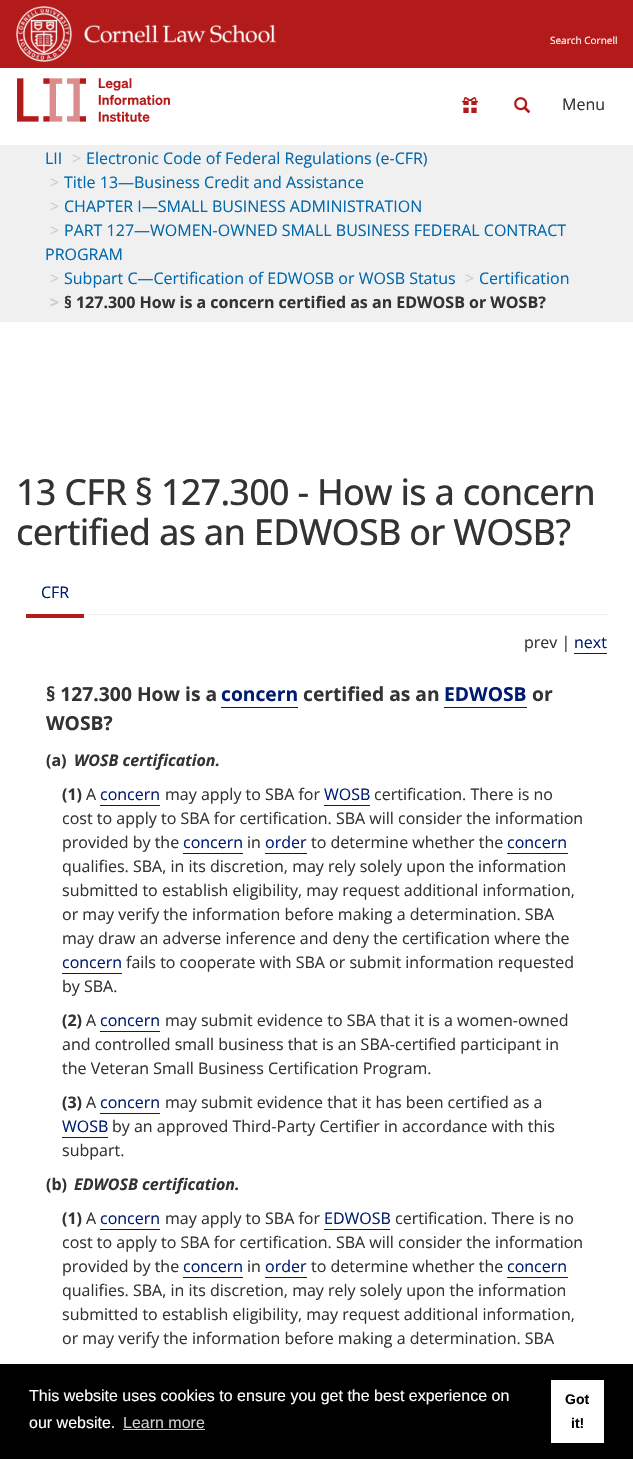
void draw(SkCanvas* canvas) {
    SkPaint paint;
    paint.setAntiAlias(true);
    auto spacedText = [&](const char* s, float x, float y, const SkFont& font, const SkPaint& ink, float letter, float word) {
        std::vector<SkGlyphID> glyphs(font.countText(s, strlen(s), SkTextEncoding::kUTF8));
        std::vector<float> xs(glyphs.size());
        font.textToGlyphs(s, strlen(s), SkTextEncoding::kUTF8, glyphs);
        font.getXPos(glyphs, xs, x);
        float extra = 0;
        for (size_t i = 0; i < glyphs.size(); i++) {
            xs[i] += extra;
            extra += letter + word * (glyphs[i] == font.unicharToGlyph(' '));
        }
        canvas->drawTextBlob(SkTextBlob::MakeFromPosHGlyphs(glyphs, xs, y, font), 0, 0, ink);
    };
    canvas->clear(0xFFFFFFFF);
    paint.setColor(0xFFB31B1B);
    canvas->drawRect(SkRect::MakeXYWH(0, 0, 633, 68), paint);
    canvas->drawImageRect(SkImages::DeferredFromEncodedData(SkData::MakeFromFileName("img1.png")), SkRect::MakeXYWH(16, 6, 56, 56), SkSamplingOptions());
    canvas->drawImageRect(SkImages::DeferredFromEncodedData(SkData::MakeFromFileName("img2.png")), SkRect::MakeXYWH(84, 24, 192, 20), SkSamplingOptions());
    SkFont font1(fontMgr->matchFamilyStyle("Open Sans", SkFontStyle::Normal()), 10);
    font1.setSubpixel(true);
    paint.setColor(0xFFFFFFFF);
    canvas->drawString("Search Cornell", 550, 44, font1, paint);
    canvas->drawImageRect(SkImages::DeferredFromEncodedData(SkData::MakeFromFileName("img3.png")), SkRect::MakeXYWH(17, 78, 153, 44), SkSamplingOptions());
    canvas->drawImageRect(SkImages::DeferredFromEncodedData(SkData::MakeFromFileName("img4.png")), SkRect::MakeXYWH(462, 97, 16, 16), SkSamplingOptions());
    canvas->drawImageRect(SkImages::DeferredFromEncodedData(SkData::MakeFromFileName("img5.png")), SkRect::MakeXYWH(514, 97, 17, 17), SkSamplingOptions());
    SkFont font2(fontMgr->matchFamilyStyle("Open Sans", SkFontStyle::Normal()), 16);
    font2.setSubpixel(true);
    paint.setColor(0xFF333333);
    canvas->drawString("Menu", 562, 110, font2, paint);
    paint.setColor(0xFFF0F0F0);
    canvas->drawRect(SkRect::MakeXYWH(0, 145, 633, 177), paint);
    paint.setColor(0xFF0068AC);
    canvas->drawString("LII", 45, 164, font2, paint);
    paint.setColor(0xFFCCCCCC);
    canvas->drawString(">", 72, 164, font2, paint);
    paint.setColor(0xFF0068AC);
    canvas->drawString("Electronic Code of Federal Regulations (e-CFR)", 86, 164, font2, paint);
    paint.setColor(0xFFCCCCCC);
    canvas->drawString(">", 50, 188, font2, paint);
    paint.setColor(0xFF0068AC);
    canvas->drawString("Title 13—Business Credit and Assistance", 64, 188, font2, paint);
    paint.setColor(0xFFCCCCCC);
    canvas->drawString(">", 50, 212, font2, paint);
    paint.setColor(0xFF0068AC);
    canvas->drawString("CHAPTER I—SMALL BUSINESS ADMINISTRATION", 64, 212, font2, paint);
    paint.setColor(0xFFCCCCCC);
    canvas->drawString(">", 50, 236, font2, paint);
    paint.setColor(0xFF0068AC);
    canvas->drawString("PART 127—WOMEN-OWNED SMALL BUSINESS FEDERAL CONTRACT", 64, 236, font2, paint);
    canvas->drawString("PROGRAM", 45, 260, font2, paint);
    paint.setColor(0xFFCCCCCC);
    canvas->drawString(">", 50, 284, font2, paint);
    paint.setColor(0xFF0068AC);
    canvas->drawString("Subpart C—Certification of EDWOSB or WOSB Status", 64, 284, font2, paint);
    paint.setColor(0xFFCCCCCC);
    canvas->drawString(">", 465, 284, font2, paint);
    paint.setColor(0xFF0068AC);
    canvas->drawString("Certification", 479, 284, font2, paint);
    SkFont font3(fontMgr->matchFamilyStyle("Open Sans", SkFontStyle::Bold()), 16);
    font3.setSubpixel(true);
    paint.setColor(0xFFCCCCCC);
    canvas->drawString(">", 50, 308, font3, paint);
    paint.setColor(0xFF333333);
    canvas->drawString("§ 127.300 How is a concern certified as an EDWOSB or WOSB?", 64, 308, font3, paint);
    SkFont font4(fontMgr->matchFamilyStyle("Open Sans", SkFontStyle(500, SkFontStyle::kNormal_Width, SkFontStyle::kUpright_Slant)), 36);
    font4.setSubpixel(true);
    spacedText("13 CFR § 127.300 - How is a concern", 16, 505, font4, paint, -0.75f, 0);
    spacedText("certified as an EDWOSB or WOSB?", 16, 545, font4, paint, -0.75f, 0);
    paint.setColor(0xFFB31B1B);
    canvas->drawRect(SkRect::MakeXYWH(26, 614, 58, 4), paint);
    paint.setColor(0xFF001C72);
    canvas->drawString("CFR", 41, 598, font2, paint);
    paint.setColor(0xFFEEEEEE);
    canvas->drawRect(SkRect::MakeXYWH(84, 614, 523, 1), paint);
    paint.setColor(0xFF333333);
    canvas->drawString("prev |", 524, 648, font2, paint);
    paint.setColor(0xFF001C72);
    canvas->drawString("next", 574, 648, font2, paint);
    canvas->drawRect(SkRect::MakeXYWH(574, 653, 33, 1), paint);
    SkFont font5(fontMgr->matchFamilyStyle("Open Sans", SkFontStyle::Bold()), 19.25f);
    font5.setSubpixel(true);
    paint.setColor(0xFF333333);
    canvas->drawString("§ 127.300 How is a", 46, 701, font5, paint);
    paint.setColor(0xFF001C72);
    canvas->drawString("concern", 221, 701, font5, paint);
    canvas->drawRect(SkRect::MakeXYWH(221, 707, 77, 1), paint);
    paint.setColor(0xFF333333);
    canvas->drawString("certified as an", 303, 701, font5, paint);
    paint.setColor(0xFF001C72);
    canvas->drawString("EDWOSB", 444, 701, font5, paint);
    canvas->drawRect(SkRect::MakeXYWH(444, 707, 83, 1), paint);
    paint.setColor(0xFF333333);
    canvas->drawString("or", 532, 701, font5, paint);
    canvas->drawString("WOSB?", 46, 730, font5, paint);
    canvas->drawString("(a)", 46, 766, font3, paint);
    SkFont font6(fontMgr->matchFamilyStyle("Open Sans", SkFontStyle::BoldItalic()), 16);
    font6.setSubpixel(true);
    canvas->drawString("WOSB certification.", 74, 766, font6, paint);
    canvas->drawString("(1)", 62, 800, font3, paint);
    canvas->drawString("A", 86, 800, font2, paint);
    paint.setColor(0xFF001C72);
    canvas->drawString("concern", 100, 800, font2, paint);
    canvas->drawRect(SkRect::MakeXYWH(100, 805, 60, 1), paint);
    paint.setColor(0xFF333333);
    canvas->drawString("may apply to SBA for", 165, 800, font2, paint);
    paint.setColor(0xFF001C72);
    canvas->drawString("WOSB", 324, 800, font2, paint);
    canvas->drawRect(SkRect::MakeXYWH(324, 805, 46, 1), paint);
    paint.setColor(0xFF333333);
    canvas->drawString("certification. There is no", 374, 800, font2, paint);
    canvas->drawString("cost to apply to SBA for certification. SBA will consider the information", 62, 824, font2, paint);
    canvas->drawString("provided by the", 62, 848, font2, paint);
    paint.setColor(0xFF001C72);
    canvas->drawString("concern", 183, 848, font2, paint);
    canvas->drawRect(SkRect::MakeXYWH(183, 853, 60, 1), paint);
    paint.setColor(0xFF333333);
    canvas->drawString("in", 247, 848, font2, paint);
    paint.setColor(0xFF001C72);
    canvas->drawString("order", 265, 848, font2, paint);
    canvas->drawRect(SkRect::MakeXYWH(265, 853, 42, 1), paint);
    paint.setColor(0xFF333333);
    canvas->drawString("to determine whether the", 311, 848, font2, paint);
    paint.setColor(0xFF001C72);
    canvas->drawString("concern", 507, 848, font2, paint);
    canvas->drawRect(SkRect::MakeXYWH(507, 853, 61, 1), paint);
    paint.setColor(0xFF333333);
    canvas->drawString("qualifies. SBA, in its discretion, may rely solely upon the information", 62, 872, font2, paint);
    canvas->drawString("submitted to establish eligibility, may request additional information,", 62, 896, font2, paint);
    canvas->drawString("or may verify the information before making a determination. SBA", 62, 920, font2, paint);
    canvas->drawString("may draw an adverse inference and deny the certification where the", 62, 944, font2, paint);
    paint.setColor(0xFF001C72);
    canvas->drawString("concern", 62, 968, font2, paint);
    canvas->drawRect(SkRect::MakeXYWH(62, 973, 60, 1), paint);
    paint.setColor(0xFF333333);
    canvas->drawString("fails to cooperate with SBA or submit information requested", 126, 968, font2, paint);
    canvas->drawString("by SBA.", 62, 992, font2, paint);
    canvas->drawString("(2)", 62, 1026, font3, paint);
    canvas->drawString("A", 86, 1026, font2, paint);
    paint.setColor(0xFF001C72);
    canvas->drawString("concern", 100, 1026, font2, paint);
    canvas->drawRect(SkRect::MakeXYWH(100, 1031, 60, 1), paint);
    paint.setColor(0xFF333333);
    canvas->drawString("may submit evidence to SBA that it is a women-owned", 165, 1026, font2, paint);
    canvas->drawString("and controlled small business that is an SBA-certified participant in", 62, 1050, font2, paint);
    canvas->drawString("the Veteran Small Business Certification Program.", 62, 1074, font2, paint);
    canvas->drawString("(3)", 62, 1108, font3, paint);
    canvas->drawString("A", 86, 1108, font2, paint);
    paint.setColor(0xFF001C72);
    canvas->drawString("concern", 100, 1108, font2, paint);
    canvas->drawRect(SkRect::MakeXYWH(100, 1113, 60, 1), paint);
    paint.setColor(0xFF333333);
    canvas->drawString("may submit evidence that it has been certified as a", 165, 1108, font2, paint);
    paint.setColor(0xFF001C72);
    canvas->drawString("WOSB", 62, 1132, font2, paint);
    canvas->drawRect(SkRect::MakeXYWH(62, 1137, 46, 1), paint);
    paint.setColor(0xFF333333);
    canvas->drawString("by an approved Third-Party Certifier in accordance with this", 112, 1132, font2, paint);
    canvas->drawString("subpart.", 62, 1156, font2, paint);
    canvas->drawString("(b)", 46, 1190, font3, paint);
    canvas->drawString("EDWOSB certification.", 74, 1190, font6, paint);
    canvas->drawString("(1)", 62, 1224, font3, paint);
    canvas->drawString("A", 86, 1224, font2, paint);
    paint.setColor(0xFF001C72);
    canvas->drawString("concern", 100, 1224, font2, paint);
    canvas->drawRect(SkRect::MakeXYWH(100, 1229, 60, 1), paint);
    paint.setColor(0xFF333333);
    canvas->drawString("may apply to SBA for", 165, 1224, font2, paint);
    paint.setColor(0xFF001C72);
    canvas->drawString("EDWOSB", 324, 1224, font2, paint);
    canvas->drawRect(SkRect::MakeXYWH(324, 1229, 66, 1), paint);
    paint.setColor(0xFF333333);
    canvas->drawString("certification. There is no", 395, 1224, font2, paint);
    canvas->drawString("cost to apply to SBA for certification. SBA will consider the information", 62, 1248, font2, paint);
    canvas->drawString("provided by the", 62, 1272, font2, paint);
    paint.setColor(0xFF001C72);
    canvas->drawString("concern", 183, 1272, font2, paint);
    canvas->drawRect(SkRect::MakeXYWH(183, 1277, 60, 1), paint);
    paint.setColor(0xFF333333);
    canvas->drawString("in", 247, 1272, font2, paint);
    paint.setColor(0xFF001C72);
    canvas->drawString("order", 265, 1272, font2, paint);
    canvas->drawRect(SkRect::MakeXYWH(265, 1277, 42, 1), paint);
    paint.setColor(0xFF333333);
    canvas->drawString("to determine whether the", 311, 1272, font2, paint);
    paint.setColor(0xFF001C72);
    canvas->drawString("concern", 507, 1272, font2, paint);
    canvas->drawRect(SkRect::MakeXYWH(507, 1277, 61, 1), paint);
    paint.setColor(0xFF333333);
    canvas->drawString("qualifies. SBA, in its discretion, may rely solely upon the information", 62, 1296, font2, paint);
    canvas->drawString("submitted to establish eligibility, may request additional information,", 62, 1320, font2, paint);
    canvas->drawString("or may verify the information before making a determination. SBA", 62, 1344, font2, paint);
    paint.setColor(0xFF000000);
    canvas->drawRect(SkRect::MakeXYWH(0, 1364, 633, 95), paint);
    SkFont font7(fontMgr->matchFamilyStyle("Liberation Sans", SkFontStyle::Normal()), 16);
    font7.setSubpixel(true);
    paint.setColor(0xFFFFFFFF);
    canvas->drawString("This website uses cookies to ensure you get the best experience on", 29, 1401, font7, paint);
    canvas->drawString("our website.", 29, 1428, font7, paint);
    paint.setColor(0xFFCCCCCC);
    canvas->drawString("Learn more", 123, 1428, font7, paint);
    canvas->drawRect(SkRect::MakeXYWH(123, 1429, 82, 1), paint);
    paint.setColor(0xFFFFFFFF);
    canvas->drawRect(SkRect::MakeXYWH(551, 1380, 53, 63), paint);
    SkFont font8(fontMgr->matchFamilyStyle("Liberation Sans", SkFontStyle::Bold()), 14);
    font8.setSubpixel(true);
    paint.setColor(0xFF000000);
    canvas->drawString("Got", 565, 1404, font8, paint);
    canvas->drawString("it!", 571, 1428, font8, paint);
}
